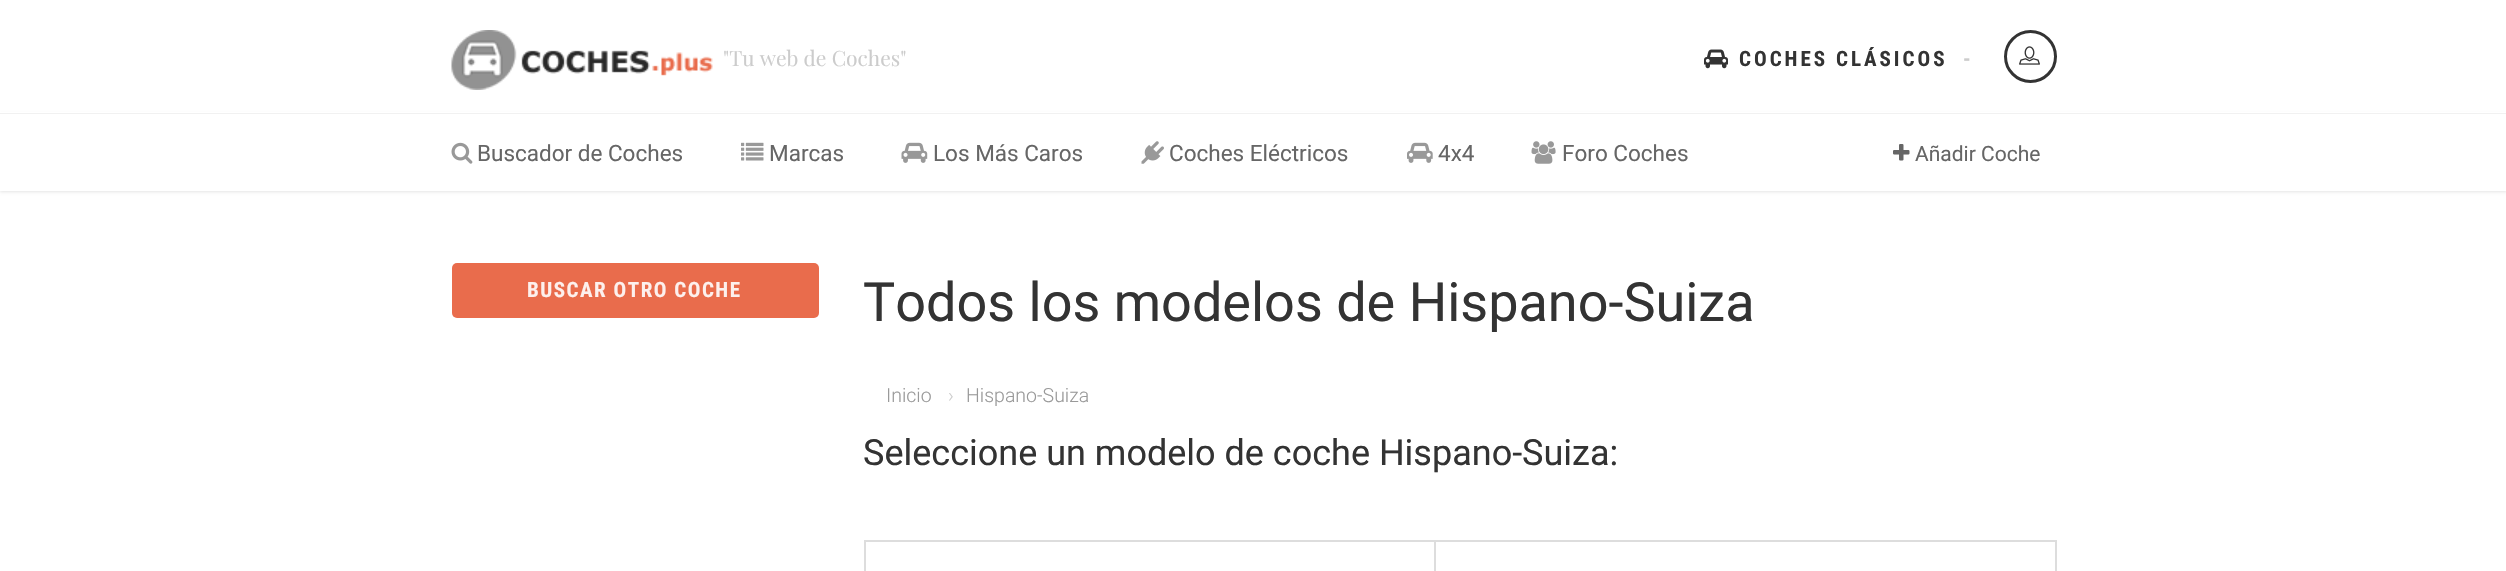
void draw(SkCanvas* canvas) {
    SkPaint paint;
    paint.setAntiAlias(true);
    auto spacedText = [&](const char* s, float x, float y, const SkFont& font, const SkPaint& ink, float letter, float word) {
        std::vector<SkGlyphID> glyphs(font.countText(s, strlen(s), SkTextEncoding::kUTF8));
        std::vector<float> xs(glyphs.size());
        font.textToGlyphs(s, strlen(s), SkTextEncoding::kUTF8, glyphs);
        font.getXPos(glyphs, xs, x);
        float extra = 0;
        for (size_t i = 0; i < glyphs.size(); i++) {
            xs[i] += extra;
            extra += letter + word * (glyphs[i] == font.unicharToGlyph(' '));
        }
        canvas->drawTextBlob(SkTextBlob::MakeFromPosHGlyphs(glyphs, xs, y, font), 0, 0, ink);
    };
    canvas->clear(0xFFFFFFFF);
    canvas->save();
    canvas->clipPath(SkPathBuilder(SkPathFillType::kEvenOdd).moveTo(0, 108).lineTo(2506, 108).lineTo(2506, 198).lineTo(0, 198).close().moveTo(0, 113).lineTo(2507, 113).lineTo(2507, 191).lineTo(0, 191).close().detach(), true);
    paint.setColor(0x1A000000);
    paint.setMaskFilter(SkMaskFilter::MakeBlur(kNormal_SkBlurStyle, 1.5f));
    canvas->drawRect(SkRect::MakeXYWH(0, 114, 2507, 78), paint);
    paint.setMaskFilter(nullptr);
    canvas->restore();
    paint.setColor(0xFFF1F1F1);
    canvas->drawPath(SkPathBuilder().moveTo(0, 112).lineTo(0, 114).lineTo(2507, 114).lineTo(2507, 2).lineTo(2506, 2).lineTo(2506, 112).close().detach(), paint);
    paint.setColor(0xFFFFFFFF);
    canvas->drawRect(SkRect::MakeXYWH(0, 112, 2506, 1), paint);
    canvas->drawImageRect(SkImages::DeferredFromEncodedData(SkData::MakeFromFileName("img1.png")), SkRect::MakeXYWH(451, 30, 262, 60), SkSamplingOptions());
    SkFont font1(fontMgr->matchFamilyStyle("Playfair Display", SkFontStyle::Normal()), 21);
    font1.setSubpixel(true);
    paint.setColor(0xFFCCCCCC);
    canvas->drawString("\"Tu web de Coches\"", 723, 66, font1, paint);
    canvas->drawImageRect(SkImages::DeferredFromEncodedData(SkData::MakeFromFileName("img2.png")), SkRect::MakeXYWH(1704, 49, 24, 20), SkSamplingOptions());
    SkFont font2(fontMgr->matchFamilyStyle("Roboto Condensed", SkFontStyle::Bold()), 21);
    font2.setSubpixel(true);
    paint.setColor(0xFF333333);
    spacedText("COCHES CLÁSICOS", 1739, 66, font2, paint, 3, 0);
    paint.setColor(0xFFCCCCCC);
    spacedText("-", 1963, 66, font2, paint, 3, 0);
    paint.setStyle(SkPaint::kStroke_Style);
    paint.setStrokeWidth(3);
    paint.setColor(0xFF333333);
    canvas->drawCircle(2030.5f, 56.5f, 25, paint);
    canvas->drawImageRect(SkImages::DeferredFromEncodedData(SkData::MakeFromFileName("img3.png")), SkRect::MakeXYWH(2019, 46, 21, 19), SkSamplingOptions());
    paint.setStyle(SkPaint::kFill_Style);
    paint.setColor(0xE6FFFFFF);
    canvas->drawRect(SkRect::MakeXYWH(0, 190, 2506, 1), paint);
    canvas->drawImageRect(SkImages::DeferredFromEncodedData(SkData::MakeFromFileName("img4.png")), SkRect::MakeXYWH(451, 142, 22, 22), SkSamplingOptions());
    SkFont font3(fontMgr->matchFamilyStyle("Roboto", SkFontStyle::Normal()), 22.5f);
    font3.setSubpixel(true);
    paint.setColor(0xFF666666);
    canvas->drawString("Buscador de Coches", 477, 161, font3, paint);
    canvas->drawImageRect(SkImages::DeferredFromEncodedData(SkData::MakeFromFileName("img5.png")), SkRect::MakeXYWH(741, 142, 23, 19), SkSamplingOptions());
    canvas->drawString("Marcas", 769, 161, font3, paint);
    canvas->drawImageRect(SkImages::DeferredFromEncodedData(SkData::MakeFromFileName("img6.png")), SkRect::MakeXYWH(901, 142, 27, 21), SkSamplingOptions());
    canvas->drawString("Los Más Caros", 933, 161, font3, paint);
    canvas->drawImageRect(SkImages::DeferredFromEncodedData(SkData::MakeFromFileName("img7.png")), SkRect::MakeXYWH(1141, 141, 23, 23), SkSamplingOptions());
    canvas->drawString("Coches Eléctricos", 1169, 161, font3, paint);
    canvas->drawImageRect(SkImages::DeferredFromEncodedData(SkData::MakeFromFileName("img8.png")), SkRect::MakeXYWH(1407, 142, 26, 21), SkSamplingOptions());
    canvas->drawString("4x4", 1438, 161, font3, paint);
    canvas->drawImageRect(SkImages::DeferredFromEncodedData(SkData::MakeFromFileName("img9.png")), SkRect::MakeXYWH(1531, 141, 25, 23), SkSamplingOptions());
    canvas->drawString("Foro Coches", 1562, 161, font3, paint);
    canvas->drawImageRect(SkImages::DeferredFromEncodedData(SkData::MakeFromFileName("img10.png")), SkRect::MakeXYWH(1893, 144, 17, 17), SkSamplingOptions());
    SkFont font4(fontMgr->matchFamilyStyle("Roboto", SkFontStyle::Normal()), 21);
    font4.setSubpixel(true);
    canvas->drawString("Añadir Coche", 1915, 161, font4, paint);
    paint.setColor(0xFFE96C4C);
    canvas->drawRoundRect(SkRect::MakeXYWH(452, 263, 367, 55), 5, 5, paint);
    paint.setColor(0xFFFDF0ED);
    spacedText("BUSCAR OTRO COCHE", 527, 297, font2, paint, 1.5f, 0);
    SkFont font5(fontMgr->matchFamilyStyle("Roboto", SkFontStyle::Normal()), 54);
    font5.setSubpixel(true);
    paint.setColor(0xFF333333);
    canvas->drawString("Todos los modelos de Hispano-Suiza", 863, 321, font5, paint);
    SkFont font6(fontMgr->matchFamilyStyle("Roboto", SkFontStyle(300, SkFontStyle::kNormal_Width, SkFontStyle::kUpright_Slant)), 19.5f);
    font6.setSubpixel(true);
    paint.setColor(0xFF999999);
    canvas->drawString("Inicio", 886, 402, font6, paint);
    paint.setColor(0xFFCCCCCC);
    canvas->drawString("›", 948, 402, font6, paint);
    paint.setColor(0xFF999999);
    canvas->drawString("Hispano-Suiza", 966, 402, font6, paint);
    SkFont font7(fontMgr->matchFamilyStyle("Roboto", SkFontStyle::Normal()), 36);
    font7.setSubpixel(true);
    paint.setColor(0xFF333333);
    canvas->drawString("Seleccione un modelo de coche Hispano-Suiza:", 863, 465, font7, paint);
    paint.setColor(0xFFDDDDDD);
    canvas->drawRect(SkRect::MakeXYWH(864, 540, 1193, 2), paint);
    canvas->drawRect(SkRect::MakeXYWH(2055, 540, 2, 31), paint);
    canvas->drawRect(SkRect::MakeXYWH(864, 540, 2, 31), paint);
    canvas->drawRect(SkRect::MakeXYWH(1434, 540, 2, 31), paint);
}
